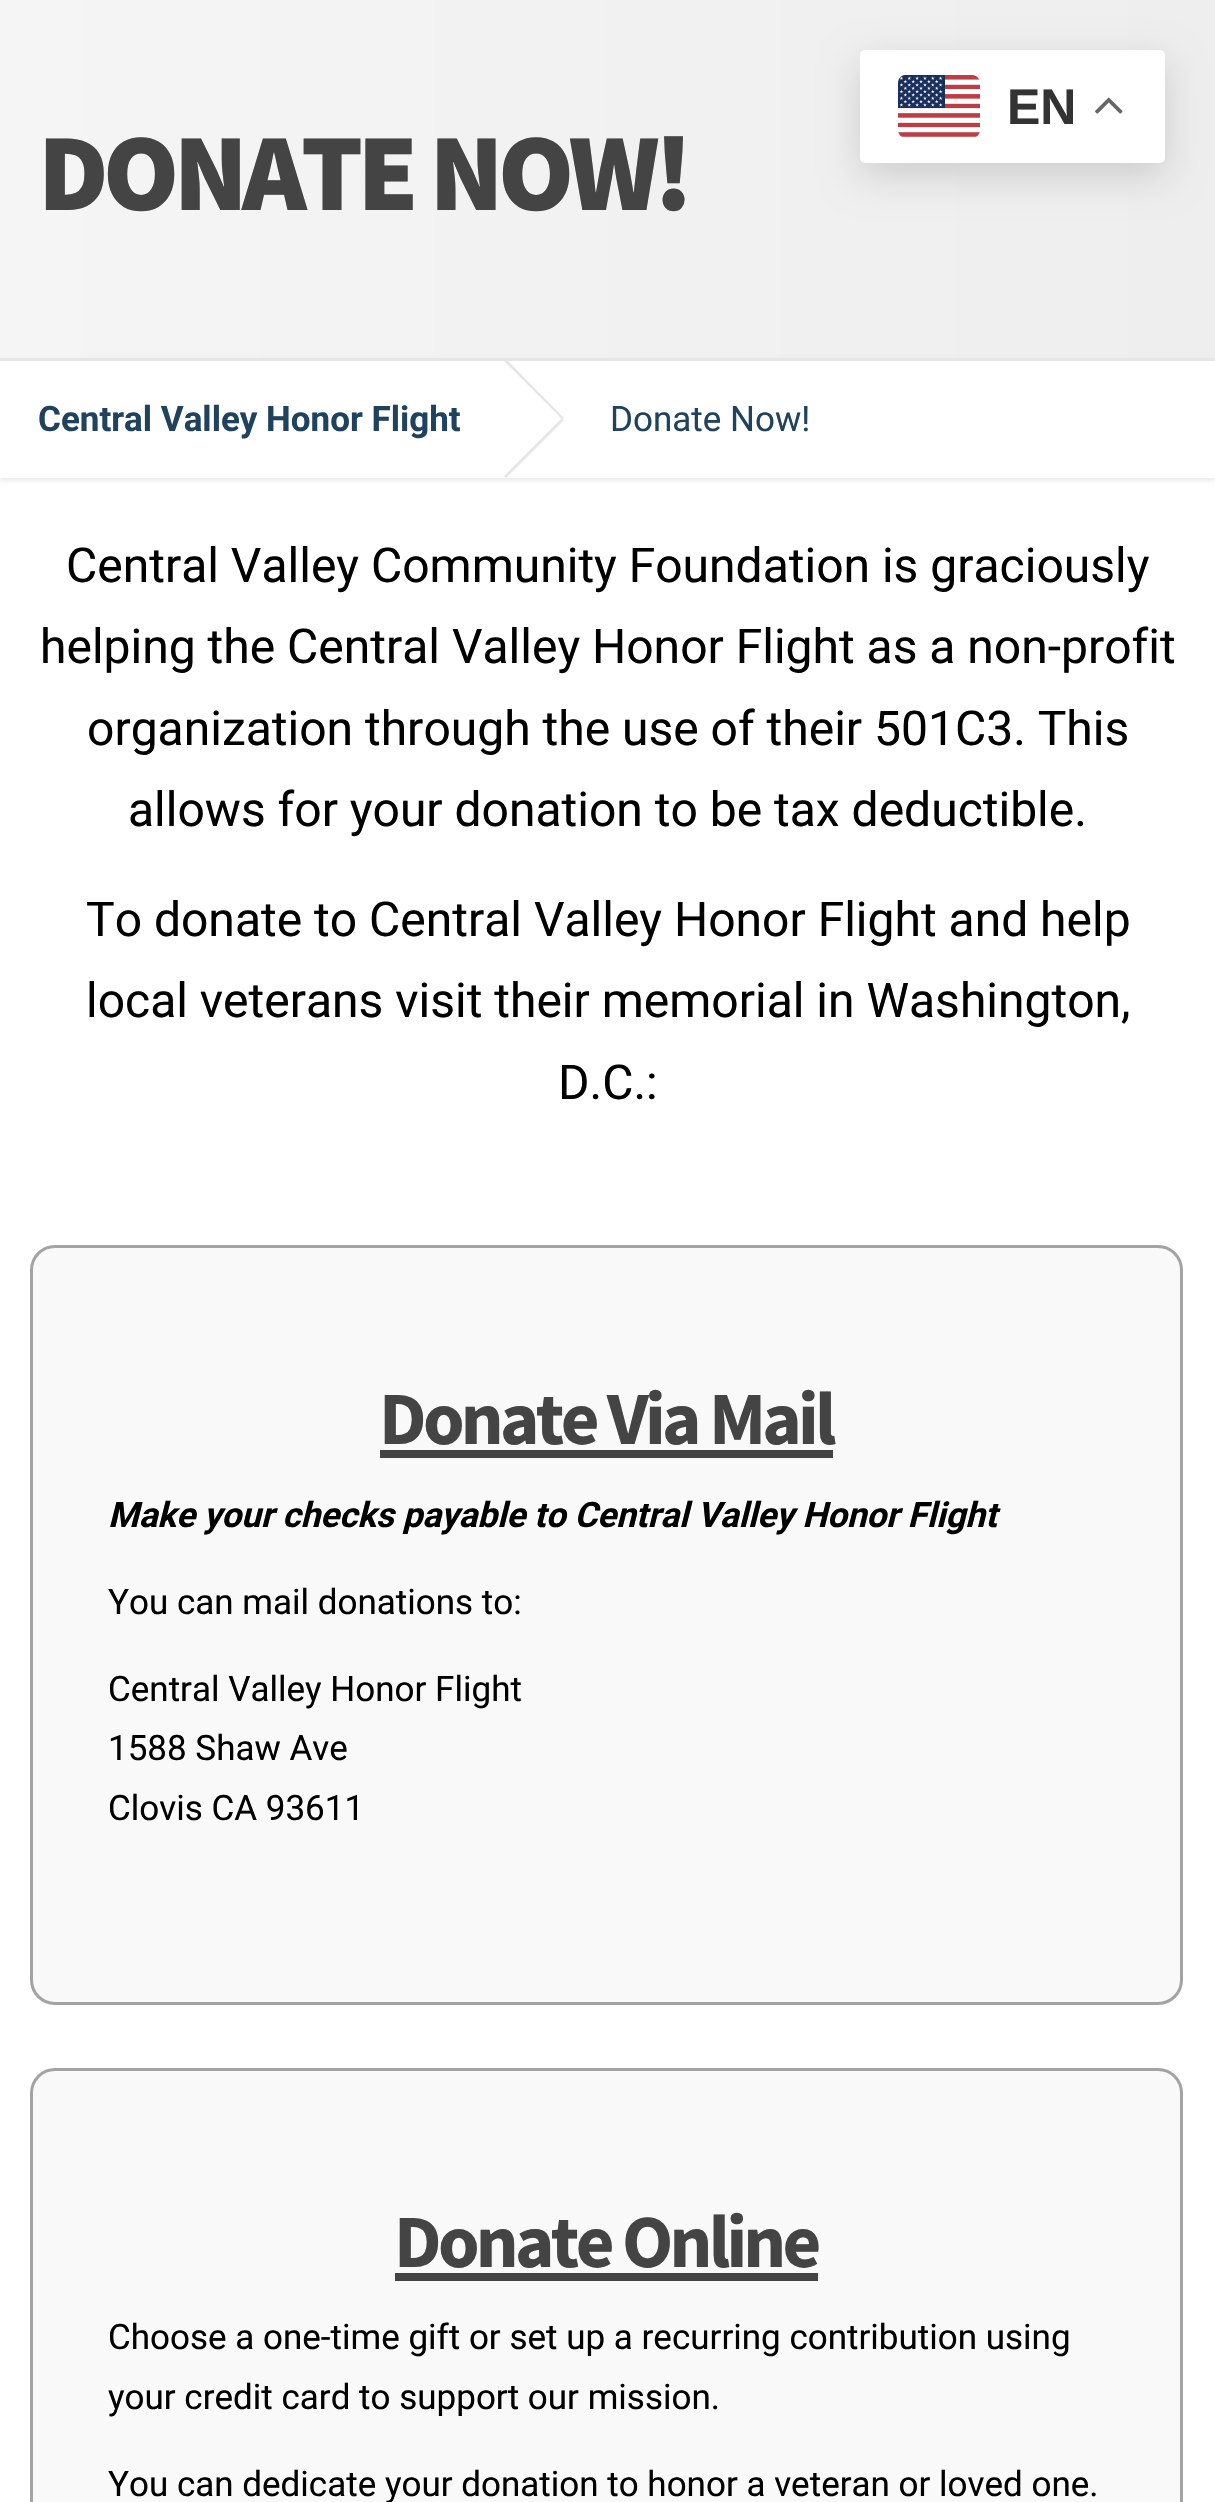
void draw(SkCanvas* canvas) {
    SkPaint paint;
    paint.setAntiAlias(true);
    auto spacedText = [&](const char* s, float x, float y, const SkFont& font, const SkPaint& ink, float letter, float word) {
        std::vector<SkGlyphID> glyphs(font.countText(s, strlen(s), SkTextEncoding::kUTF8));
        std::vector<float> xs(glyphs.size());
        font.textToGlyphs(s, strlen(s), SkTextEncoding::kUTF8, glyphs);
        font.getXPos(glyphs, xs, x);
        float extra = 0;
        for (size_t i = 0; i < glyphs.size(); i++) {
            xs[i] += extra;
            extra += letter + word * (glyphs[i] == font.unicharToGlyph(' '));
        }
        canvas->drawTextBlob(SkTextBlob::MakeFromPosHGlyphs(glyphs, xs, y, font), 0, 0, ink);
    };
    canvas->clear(0xFFFFFFFF);
    {
        const SkColor colors[] = {0xFFF5F5F5, 0xFFEEEEEE};
        const float stops[] = {0, 1};
        const SkPoint ends[] = {{0, 173}, {1215, 172}};
        paint.setShader(SkGradientShader::MakeLinear(ends, colors, stops, 2, SkTileMode::kClamp));
        paint.setAlpha(255);
    }
    canvas->drawRect(SkRect::MakeXYWH(0, 0, 1215, 358), paint);
    paint.setShader(nullptr);
    paint.setColor(0x26000000);
    paint.setMaskFilter(SkMaskFilter::MakeBlur(kNormal_SkBlurStyle, 19));
    canvas->drawRoundRect(SkRect::MakeXYWH(860, 63, 305, 112), 5, 5, paint);
    paint.setMaskFilter(nullptr);
    paint.setColor(0xFFFFFFFF);
    canvas->drawRoundRect(SkRect::MakeXYWH(860, 50, 305, 113), 5, 5, paint);
    canvas->drawImageRect(SkImages::DeferredFromEncodedData(SkData::MakeFromFileName("img1.png")), SkRect::MakeXYWH(898, 75, 82, 62), SkSamplingOptions());
    SkFont font1(fontMgr->matchFamilyStyle("Liberation Sans", SkFontStyle::Bold()), 50);
    font1.setSubpixel(true);
    paint.setColor(0xFF333333);
    canvas->drawString("EN", 1007, 124, font1, paint);
    canvas->drawImageRect(SkImages::DeferredFromEncodedData(SkData::MakeFromFileName("img2.png")), SkRect::MakeXYWH(1095, 97, 28, 17), SkSamplingOptions());
    SkFont font2(fontMgr->matchFamilyStyle("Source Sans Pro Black", SkFontStyle(900, SkFontStyle::kNormal_Width, SkFontStyle::kUpright_Slant)), 110);
    font2.setSubpixel(true);
    paint.setColor(0xFF444444);
    spacedText("DONATE NOW!", 38, 210, font2, paint, -5.5f, 0);
    paint.setColor(0xFFE6E6E6);
    paint.setMaskFilter(SkMaskFilter::MakeBlur(kNormal_SkBlurStyle, 2.5f));
    canvas->drawRect(SkRect::MakeXYWH(0, 360, 1215, 120), paint);
    paint.setMaskFilter(nullptr);
    paint.setColor(0xFFFFFFFF);
    canvas->drawRect(SkRect::MakeXYWH(0, 361, 1215, 117), paint);
    paint.setColor(0xFFE6E6E6);
    canvas->drawRect(SkRect::MakeXYWH(0, 358, 1215, 3), paint);
    SkFont font3(fontMgr->matchFamilyStyle("Roboto", SkFontStyle::Bold()), 35);
    font3.setSubpixel(true);
    paint.setColor(0xFF1F425F);
    canvas->drawString("Central Valley Honor Flight", 38, 431, font3, paint);
    paint.setColor(0xFFE6E6E6);
    canvas->drawPath(SkPathBuilder().moveTo(504, 361).lineTo(506, 359).lineTo(564, 418).lineTo(562, 419).close().detach(), paint);
    canvas->drawPath(SkPathBuilder().moveTo(562, 418).lineTo(564, 420).lineTo(506, 478).lineTo(504, 476).close().detach(), paint);
    SkFont font4(fontMgr->matchFamilyStyle("Roboto", SkFontStyle::Normal()), 35);
    font4.setSubpixel(true);
    paint.setColor(0xFF1F425F);
    canvas->drawString("Donate Now!", 610, 431, font4, paint);
    SkFont font5(fontMgr->matchFamilyStyle("Roboto", SkFontStyle::Normal()), 48);
    font5.setSubpixel(true);
    paint.setColor(0xFF000000);
    canvas->drawString("Central Valley Community Foundation is graciously", 66, 582, font5, paint);
    canvas->drawString("helping the Central Valley Honor Flight as a non-profit", 40, 663, font5, paint);
    canvas->drawString("organization through the use of their 501C3. This", 87, 745, font5, paint);
    canvas->drawString("allows for your donation to be tax deductible.", 128, 826, font5, paint);
    canvas->drawString("To donate to Central Valley Honor Flight and help", 86, 936, font5, paint);
    canvas->drawString("local veterans visit their memorial in Washington,", 86, 1017, font5, paint);
    canvas->drawString("D.C.:", 558, 1099, font5, paint);
    paint.setColor(0xFFF9F9F9);
    canvas->drawRoundRect(SkRect::MakeXYWH(31.5f, 1246.5f, 1150, 757), 23.5f, 23.5f, paint);
    paint.setStyle(SkPaint::kStroke_Style);
    paint.setStrokeWidth(3);
    paint.setColor(0xFFA3A3A3);
    canvas->drawRoundRect(SkRect::MakeXYWH(31.5f, 1246.5f, 1150, 757), 23.5f, 23.5f, paint);
    SkFont font6(fontMgr->matchFamilyStyle("Source Sans Pro", SkFontStyle::Bold()), 75);
    font6.setSubpixel(true);
    paint.setStyle(SkPaint::kFill_Style);
    paint.setColor(0xFF444444);
    spacedText("Donate Via Mail", 379, 1444, font6, paint, -3.75f, 0);
    canvas->drawRect(SkRect::MakeXYWH(380, 1450, 453, 8), paint);
    SkFont font7(fontMgr->matchFamilyStyle("Roboto", SkFontStyle::BoldItalic()), 35);
    font7.setSubpixel(true);
    paint.setColor(0xFF000000);
    canvas->drawString("Make your checks payable to Central Valley Honor Flight", 108, 1527, font7, paint);
    canvas->drawString("You can mail donations to:", 108, 1614, font4, paint);
    canvas->drawString("Central Valley Honor Flight", 108, 1701, font4, paint);
    canvas->drawString("1588 Shaw Ave", 108, 1760, font4, paint);
    canvas->drawString("Clovis CA 93611", 108, 1820, font4, paint);
    paint.setColor(0xFFF9F9F9);
    canvas->drawRoundRect(SkRect::MakeXYWH(31.5f, 2069.5f, 1150, 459), 23.5f, 23.5f, paint);
    paint.setStyle(SkPaint::kStroke_Style);
    paint.setColor(0xFFA3A3A3);
    canvas->drawRoundRect(SkRect::MakeXYWH(31.5f, 2069.5f, 1150, 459), 23.5f, 23.5f, paint);
    paint.setStyle(SkPaint::kFill_Style);
    paint.setColor(0xFF444444);
    spacedText("Donate Online", 394, 2267, font6, paint, -3.75f, 0);
    canvas->drawRect(SkRect::MakeXYWH(395, 2273, 423, 8), paint);
    paint.setColor(0xFF000000);
    canvas->drawString("Choose a one-time gift or set up a recurring contribution using", 108, 2349, font4, paint);
    canvas->drawString("your credit card to support our mission.", 108, 2409, font4, paint);
    canvas->drawString("You can dedicate your donation to honor a veteran or loved one.", 108, 2496, font4, paint);
}
